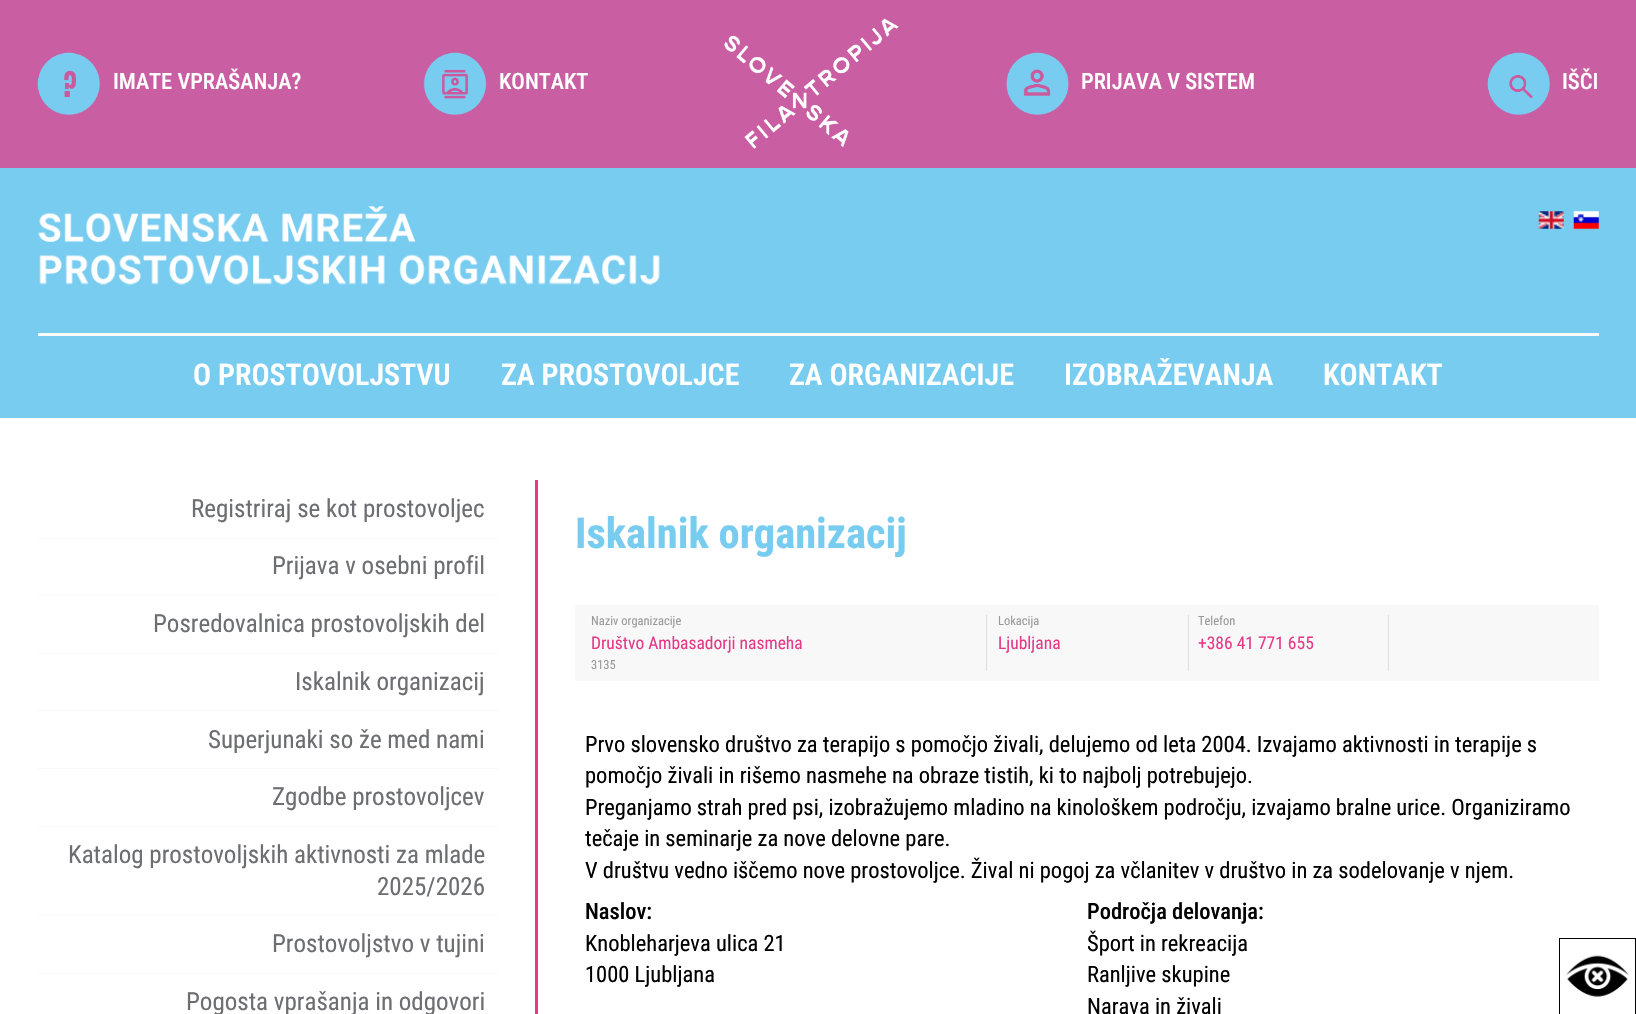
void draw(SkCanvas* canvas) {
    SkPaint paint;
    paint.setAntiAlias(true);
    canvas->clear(0xFFFFFFFF);
    paint.setColor(0xFFC95FA2);
    canvas->drawRect(SkRect::MakeXYWH(0, 0, 1636, 168), paint);
    canvas->drawImageRect(SkImages::DeferredFromEncodedData(SkData::MakeFromFileName("img1.png")), SkRect::MakeXYWH(37, 52, 63, 63), SkSamplingOptions());
    SkFont font1(fontMgr->matchFamilyStyle("Roboto Condensed", SkFontStyle(500, SkFontStyle::kNormal_Width, SkFontStyle::kUpright_Slant)), 22.5f);
    font1.setSubpixel(true);
    paint.setColor(0xFFFFFFFF);
    canvas->drawString("IMATE VPRAŠANJA?", 113, 89, font1, paint);
    canvas->drawImageRect(SkImages::DeferredFromEncodedData(SkData::MakeFromFileName("img2.png")), SkRect::MakeXYWH(423, 52, 64, 63), SkSamplingOptions());
    canvas->drawString("KONTAKT", 499, 89, font1, paint);
    canvas->drawImageRect(SkImages::DeferredFromEncodedData(SkData::MakeFromFileName("img3.png")), SkRect::MakeXYWH(724, 18, 175, 131), SkSamplingOptions());
    canvas->drawImageRect(SkImages::DeferredFromEncodedData(SkData::MakeFromFileName("img4.png")), SkRect::MakeXYWH(1006, 52, 63, 63), SkSamplingOptions());
    canvas->drawString("PRIJAVA V SISTEM", 1081, 89, font1, paint);
    canvas->drawImageRect(SkImages::DeferredFromEncodedData(SkData::MakeFromFileName("img5.png")), SkRect::MakeXYWH(1487, 52, 63, 63), SkSamplingOptions());
    canvas->drawString("IŠČI", 1562, 89, font1, paint);
    paint.setColor(0xFF78CCF0);
    canvas->drawRect(SkRect::MakeXYWH(0, 168, 1636, 250), paint);
    paint.setColor(0xFFFFFFFF);
    canvas->drawRect(SkRect::MakeXYWH(38, 333, 1561, 3), paint);
    canvas->drawImageRect(SkImages::DeferredFromEncodedData(SkData::MakeFromFileName("img6.png")), SkRect::MakeXYWH(38, 206, 622, 79), SkSamplingOptions());
    canvas->drawImageRect(SkImages::DeferredFromEncodedData(SkData::MakeFromFileName("img7.png")), SkRect::MakeXYWH(1538, 211, 26, 18), SkSamplingOptions());
    canvas->drawImageRect(SkImages::DeferredFromEncodedData(SkData::MakeFromFileName("img8.png")), SkRect::MakeXYWH(1573, 211, 26, 18), SkSamplingOptions());
    SkFont font2(fontMgr->matchFamilyStyle("Roboto Condensed", SkFontStyle(600, SkFontStyle::kNormal_Width, SkFontStyle::kUpright_Slant)), 30);
    font2.setSubpixel(true);
    canvas->drawString("O PROSTOVOLJSTVU", 193, 385, font2, paint);
    canvas->drawString("ZA PROSTOVOLJCE", 501, 385, font2, paint);
    canvas->drawString("ZA ORGANIZACIJE", 789, 385, font2, paint);
    canvas->drawString("IZOBRAŽEVANJA", 1064, 385, font2, paint);
    canvas->drawString("KONTAKT", 1323, 385, font2, paint);
    paint.setColor(0xFFE43A88);
    canvas->drawRect(SkRect::MakeXYWH(535, 480, 3, 534), paint);
    paint.setColor(0xFFF8F8F8);
    canvas->drawRect(SkRect::MakeXYWH(38, 538, 460, 1), paint);
    SkFont font3(fontMgr->matchFamilyStyle("Roboto Condensed", SkFontStyle::Normal()), 25);
    font3.setSubpixel(true);
    paint.setColor(0xFF6D6E71);
    canvas->drawString("Registriraj se kot prostovoljec", 191, 517, font3, paint);
    paint.setColor(0xFFF8F8F8);
    canvas->drawRect(SkRect::MakeXYWH(38, 595, 460, 1), paint);
    paint.setColor(0xFF6D6E71);
    canvas->drawString("Prijava v osebni profil", 272, 574, font3, paint);
    paint.setColor(0xFFF8F8F8);
    canvas->drawRect(SkRect::MakeXYWH(38, 653, 460, 1), paint);
    paint.setColor(0xFF6D6E71);
    canvas->drawString("Posredovalnica prostovoljskih del", 153, 632, font3, paint);
    paint.setColor(0xFFF8F8F8);
    canvas->drawRect(SkRect::MakeXYWH(38, 710, 460, 1), paint);
    paint.setColor(0xFF6D6E71);
    canvas->drawString("Iskalnik organizacij", 295, 690, font3, paint);
    paint.setColor(0xFFF8F8F8);
    canvas->drawRect(SkRect::MakeXYWH(38, 768, 460, 1), paint);
    paint.setColor(0xFF6D6E71);
    canvas->drawString("Superjunaki so že med nami", 208, 748, font3, paint);
    paint.setColor(0xFFF8F8F8);
    canvas->drawRect(SkRect::MakeXYWH(38, 826, 460, 1), paint);
    paint.setColor(0xFF6D6E71);
    canvas->drawString("Zgodbe prostovoljcev", 272, 805, font3, paint);
    paint.setColor(0xFFF8F8F8);
    canvas->drawRect(SkRect::MakeXYWH(38, 915, 460, 1), paint);
    paint.setColor(0xFF6D6E71);
    canvas->drawString("Katalog prostovoljskih aktivnosti za mlade", 68, 863, font3, paint);
    canvas->drawString("2025/2026", 377, 895, font3, paint);
    paint.setColor(0xFFF8F8F8);
    canvas->drawRect(SkRect::MakeXYWH(38, 973, 460, 1), paint);
    paint.setColor(0xFF6D6E71);
    canvas->drawString("Prostovoljstvo v tujini", 272, 952, font3, paint);
    canvas->drawString("Pogosta vprašanja in odgovori", 186, 1010, font3, paint);
    SkFont font4(fontMgr->matchFamilyStyle("Roboto Condensed", SkFontStyle::Bold()), 42.5f);
    font4.setSubpixel(true);
    paint.setColor(0xFF78CCF0);
    canvas->drawString("Iskalnik organizacij", 575, 548, font4, paint);
    paint.setColor(0xFFF8F8F8);
    canvas->drawRect(SkRect::MakeXYWH(575, 605, 1024, 76), paint);
    SkFont font5(fontMgr->matchFamilyStyle("Roboto Condensed", SkFontStyle::Normal()), 12.5f);
    font5.setSubpixel(true);
    paint.setColor(0xFF999999);
    canvas->drawString("Naziv organizacije", 591, 625, font5, paint);
    SkFont font6(fontMgr->matchFamilyStyle("Roboto Condensed", SkFontStyle::Normal()), 17.5f);
    font6.setSubpixel(true);
    paint.setColor(0xFFE43A88);
    canvas->drawString("Društvo Ambasadorji nasmeha", 591, 649, font6, paint);
    paint.setColor(0xFF999999);
    canvas->drawString("3135", 591, 669, font5, paint);
    paint.setColor(0xFFDDDDDD);
    canvas->drawRect(SkRect::MakeXYWH(986, 615, 1, 56), paint);
    paint.setColor(0xFF999999);
    canvas->drawString("Lokacija", 998, 625, font5, paint);
    paint.setColor(0xFFE43A88);
    canvas->drawString("Ljubljana", 998, 649, font6, paint);
    paint.setColor(0xFFDDDDDD);
    canvas->drawRect(SkRect::MakeXYWH(1188, 615, 1, 56), paint);
    paint.setColor(0xFF999999);
    canvas->drawString("Telefon", 1198, 625, font5, paint);
    paint.setColor(0xFFE43A88);
    canvas->drawString("+386 41 771 655", 1198, 649, font6, paint);
    paint.setColor(0xFFDDDDDD);
    canvas->drawRect(SkRect::MakeXYWH(1388, 615, 1, 56), paint);
    SkFont font7(fontMgr->matchFamilyStyle("Roboto Condensed", SkFontStyle::Normal()), 22.5f);
    font7.setSubpixel(true);
    paint.setColor(0xFF000000);
    canvas->drawString("Prvo slovensko društvo za terapijo s pomočjo živali, delujemo od leta 2004. Izvajamo aktivnosti in terapije s", 585, 752, font7, paint);
    canvas->drawString("pomočjo živali in rišemo nasmehe na obraze tistih, ki to najbolj potrebujejo.", 585, 783, font7, paint);
    canvas->drawString("Preganjamo strah pred psi, izobražujemo mladino na kinološkem področju, izvajamo bralne urice. Organiziramo", 585, 815, font7, paint);
    canvas->drawString("tečaje in seminarje za nove delovne pare.", 585, 846, font7, paint);
    canvas->drawString("V društvu vedno iščemo nove prostovoljce. Žival ni pogoj za včlanitev v društvo in za sodelovanje v njem.", 585, 878, font7, paint);
    canvas->drawString("Naslov:", 585, 919, font1, paint);
    canvas->drawString("Knobleharjeva ulica 21", 585, 951, font7, paint);
    canvas->drawString("1000 Ljubljana", 585, 982, font7, paint);
    canvas->drawString("Področja delovanja:", 1087, 919, font1, paint);
    canvas->drawString("Šport in rekreacija", 1087, 951, font7, paint);
    canvas->drawString("Ranljive skupine", 1087, 982, font7, paint);
    canvas->drawString("Narava in živali", 1087, 1014, font7, paint);
    paint.setStyle(SkPaint::kStroke_Style);
    paint.setStrokeWidth(1);
    canvas->drawRect(SkRect::MakeXYWH(1559.5f, 938.5f, 76, 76), paint);
    canvas->drawImageRect(SkImages::DeferredFromEncodedData(SkData::MakeFromFileName("img9.png")), SkRect::MakeXYWH(1566, 955, 63, 42), SkSamplingOptions());
}
